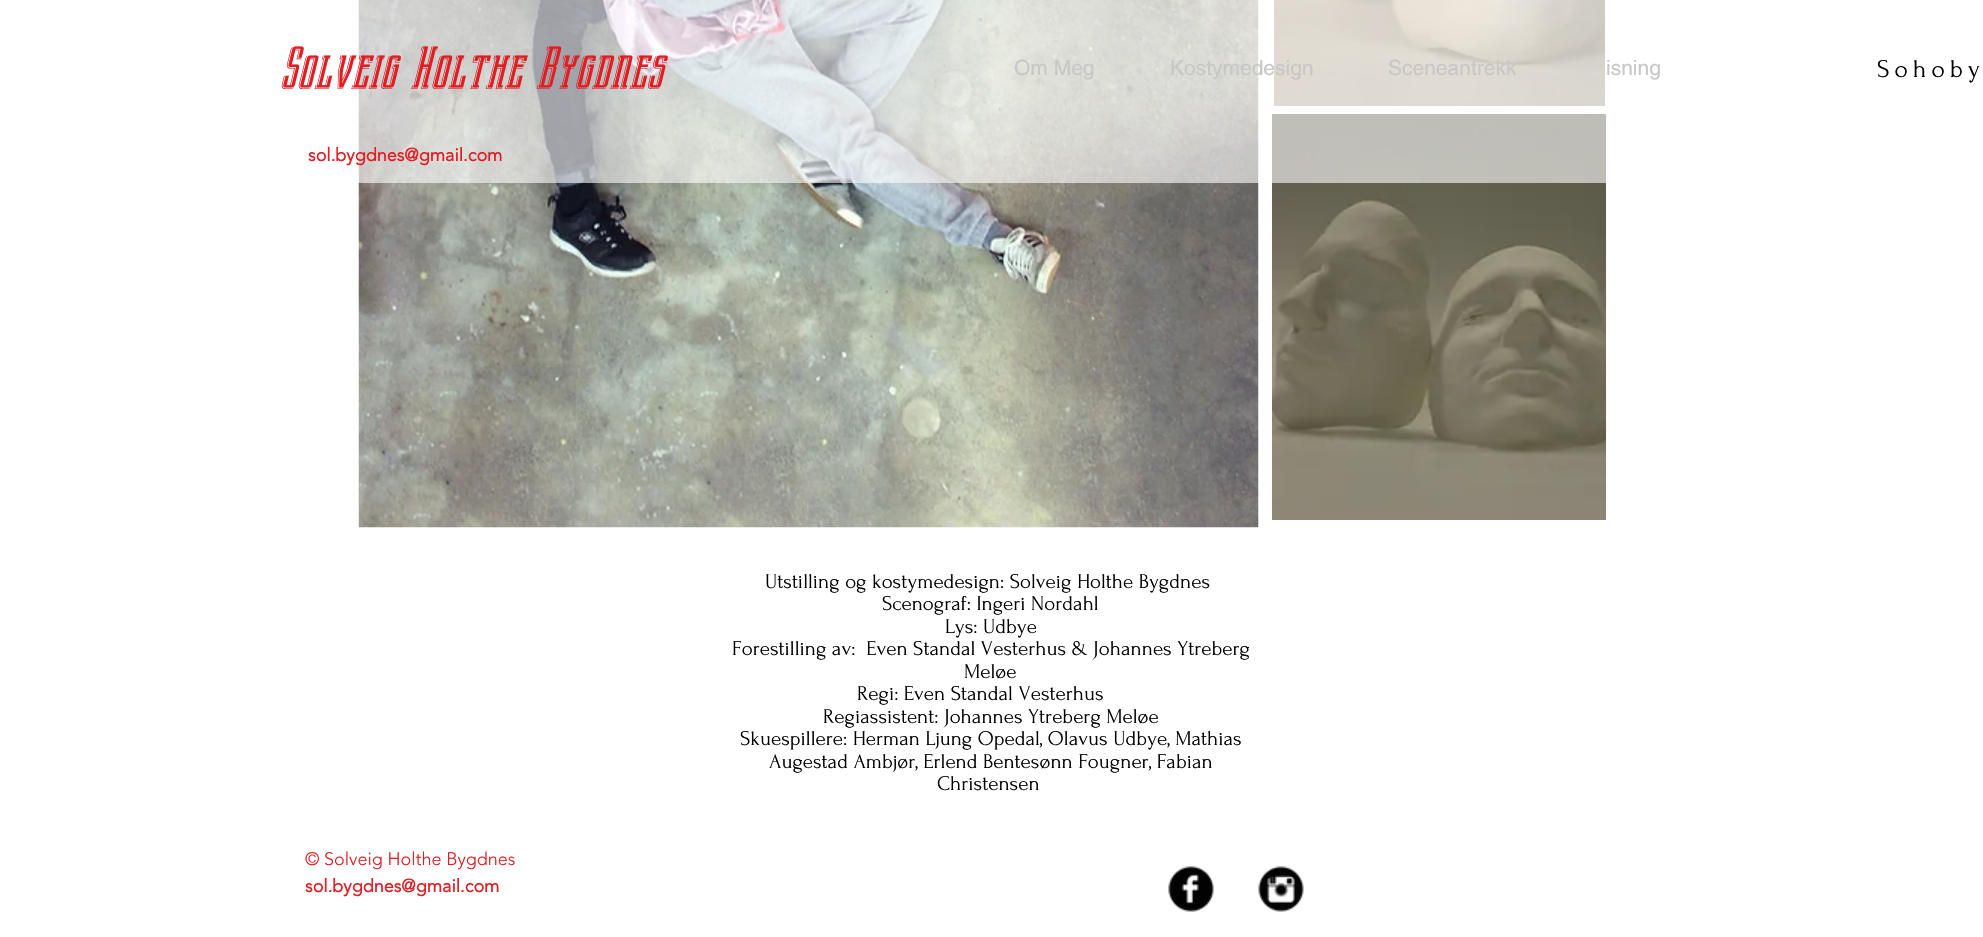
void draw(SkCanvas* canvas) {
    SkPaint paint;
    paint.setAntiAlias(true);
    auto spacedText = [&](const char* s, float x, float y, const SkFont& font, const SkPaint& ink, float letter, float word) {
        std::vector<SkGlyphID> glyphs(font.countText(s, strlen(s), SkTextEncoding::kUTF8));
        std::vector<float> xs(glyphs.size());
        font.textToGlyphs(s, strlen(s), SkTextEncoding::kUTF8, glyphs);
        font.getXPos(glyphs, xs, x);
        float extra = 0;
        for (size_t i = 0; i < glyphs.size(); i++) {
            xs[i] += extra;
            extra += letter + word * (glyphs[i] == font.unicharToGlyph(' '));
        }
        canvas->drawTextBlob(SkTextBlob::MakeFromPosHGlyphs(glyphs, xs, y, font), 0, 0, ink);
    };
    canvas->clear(0xFFFFFFFF);
    canvas->drawImageRect(SkImages::DeferredFromEncodedData(SkData::MakeFromFileName("img1.png")), SkRect::MakeXYWH(358, 0, 901, 528), SkSamplingOptions());
    canvas->drawImageRect(SkImages::DeferredFromEncodedData(SkData::MakeFromFileName("img2.png")), SkRect::MakeXYWH(1274, 0, 331, 106), SkSamplingOptions());
    canvas->drawImageRect(SkImages::DeferredFromEncodedData(SkData::MakeFromFileName("img3.png")), SkRect::MakeXYWH(1272, 114, 335, 406), SkSamplingOptions());
    paint.setColor(0x99FFFFFF);
    canvas->drawRect(SkRect::MakeXYWH(358, 0, 1249, 183), paint);
    SkFont font1(fontMgr->matchFamilyStyle("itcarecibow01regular", SkFontStyle::Italic()), 51);
    font1.setSubpixel(true);
    paint.setColor(0xFFE21C21);
    canvas->drawString("Solveig Holthe Bygdnes", 279, 89, font1, paint);
    SkFont font2(fontMgr->matchFamilyStyle("helvetica", SkFontStyle::Normal()), 21);
    font2.setSubpixel(true);
    paint.setColor(0xFFC7C7C7);
    canvas->drawString("Om Meg", 1014, 75, font2, paint);
    canvas->drawString("Kostymedesign", 1170, 75, font2, paint);
    canvas->drawString("Sceneantrekk", 1388, 75, font2, paint);
    canvas->drawString("isning", 1606, 75, font2, paint);
    SkFont font3(fontMgr->matchFamilyStyle("Forum", SkFontStyle::Normal()), 25.5f);
    font3.setSubpixel(true);
    paint.setColor(0xFF000000);
    spacedText("Sohoby", 1877, 77, font3, paint, 5, 0);
    SkFont font4(fontMgr->matchFamilyStyle("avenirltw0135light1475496", SkFontStyle::Bold()), 18);
    font4.setSubpixel(true);
    paint.setColor(0xFFE21C21);
    canvas->drawString("sol.bygdnes@gmail.com", 308, 161, font4, paint);
    SkFont font5(fontMgr->matchFamilyStyle("Forum", SkFontStyle::Normal()), 21);
    font5.setSubpixel(true);
    paint.setColor(0xFF000000);
    canvas->drawString("Utstilling og kostymedesign: Solveig Holthe Bygdnes", 765, 588, font5, paint);
    canvas->drawString("Scenograf: Ingeri Nordahl", 882, 610, font5, paint);
    canvas->drawString("Lys: Udbye", 945, 633, font5, paint);
    canvas->drawString("Forestilling av:  Even Standal Vesterhus & Johannes Ytreberg", 732, 655, font5, paint);
    canvas->drawString("Meløe", 964, 678, font5, paint);
    canvas->drawString("Regi: Even Standal Vesterhus", 857, 700, font5, paint);
    canvas->drawString("Regiassistent: Johannes Ytreberg Meløe", 823, 723, font5, paint);
    canvas->drawString("Skuespillere: Herman Ljung Opedal, Olavus Udbye, Mathias", 740, 745, font5, paint);
    canvas->drawString("Augestad Ambjør, Erlend Bentesønn Fougner, Fabian", 769, 768, font5, paint);
    canvas->drawString("Christensen", 937, 790, font5, paint);
    SkFont font6(fontMgr->matchFamilyStyle("avenirltw0135light1475496", SkFontStyle(300, SkFontStyle::kNormal_Width, SkFontStyle::kUpright_Slant)), 18);
    font6.setSubpixel(true);
    paint.setColor(0xFFE21C21);
    canvas->drawString("© Solveig Holthe Bygdnes", 305, 865, font6, paint);
    canvas->drawString("sol.bygdnes@gmail.com", 305, 892, font4, paint);
    canvas->drawImageRect(SkImages::DeferredFromEncodedData(SkData::MakeFromFileName("img4.png")), SkRect::MakeXYWH(1168, 866, 46, 46), SkSamplingOptions());
    canvas->drawImageRect(SkImages::DeferredFromEncodedData(SkData::MakeFromFileName("img5.png")), SkRect::MakeXYWH(1258, 866, 46, 46), SkSamplingOptions());
}
